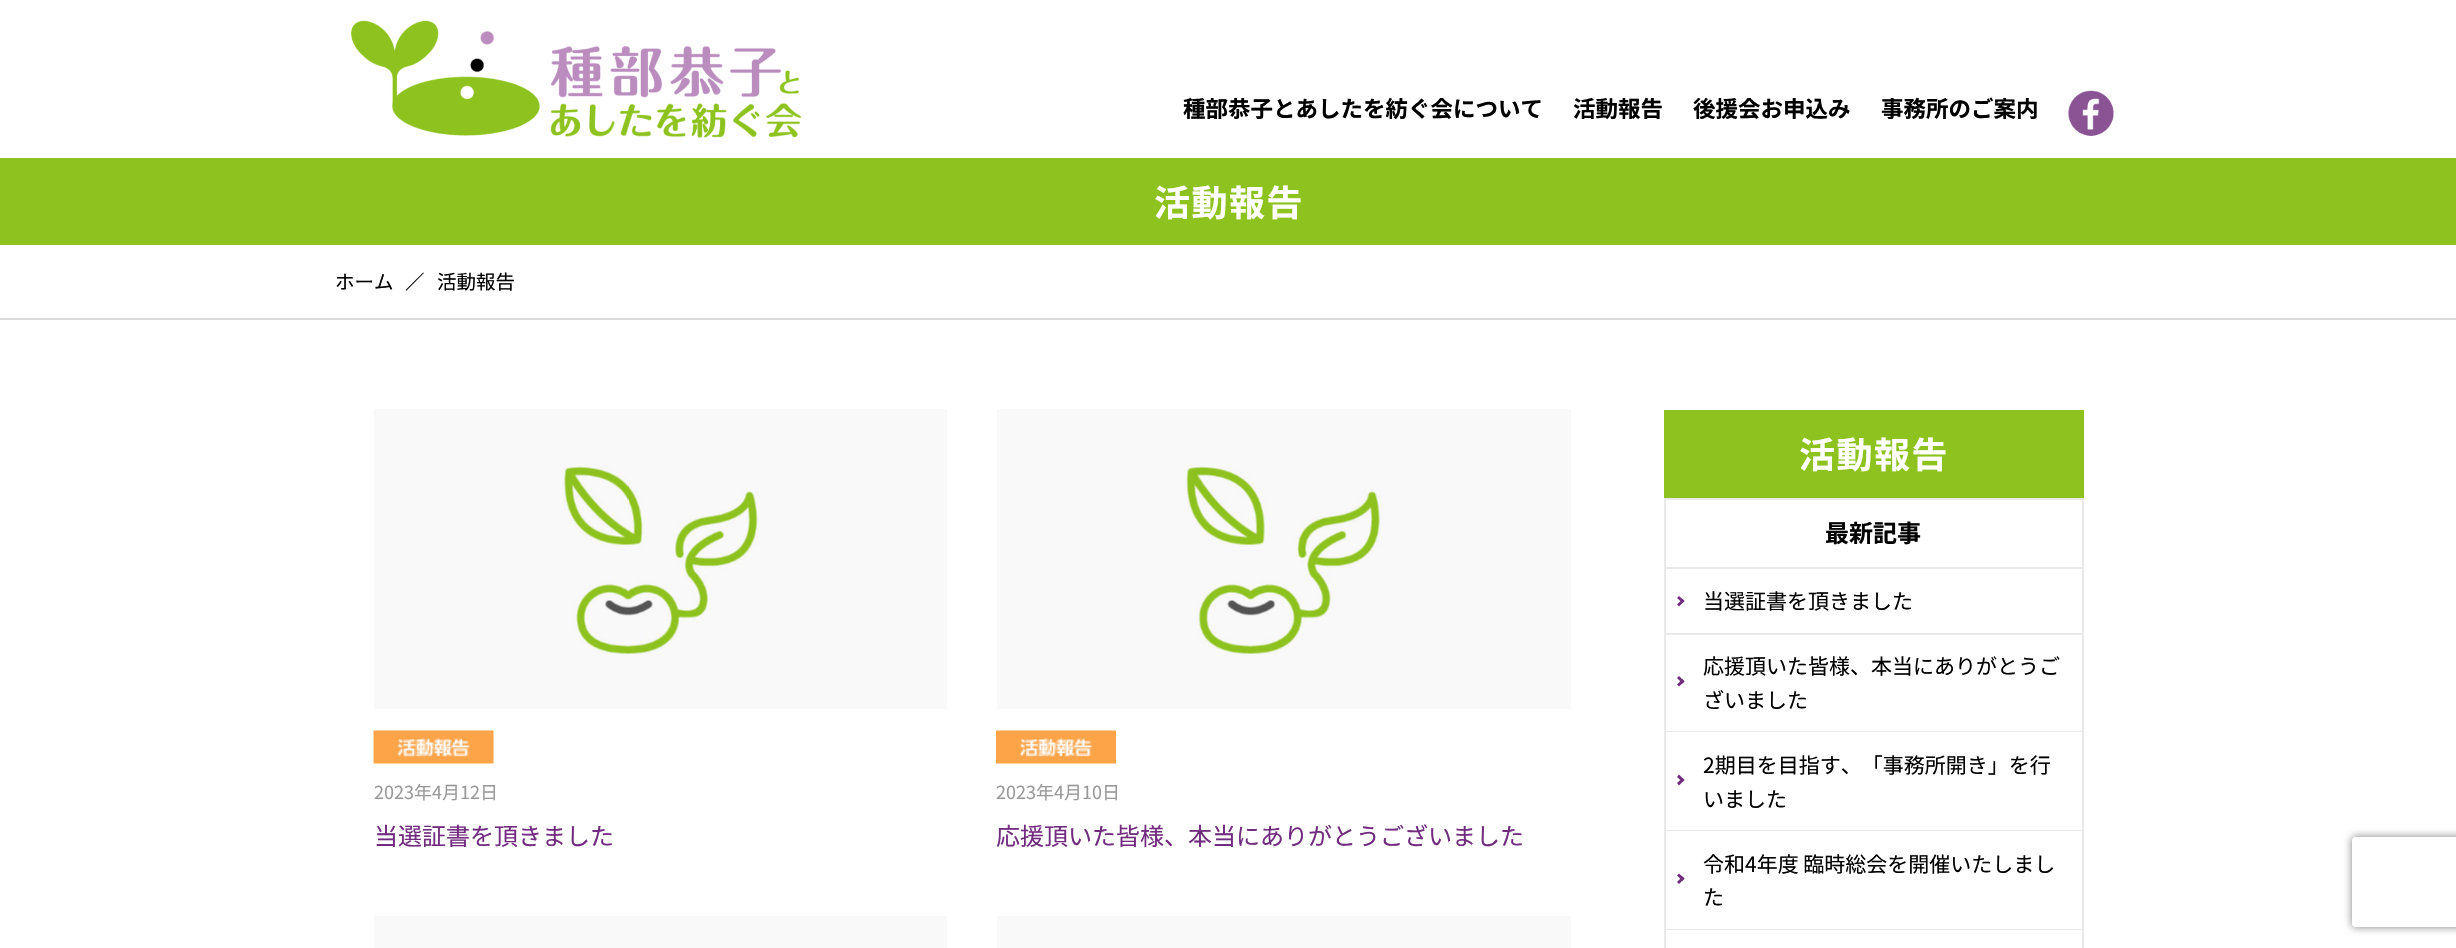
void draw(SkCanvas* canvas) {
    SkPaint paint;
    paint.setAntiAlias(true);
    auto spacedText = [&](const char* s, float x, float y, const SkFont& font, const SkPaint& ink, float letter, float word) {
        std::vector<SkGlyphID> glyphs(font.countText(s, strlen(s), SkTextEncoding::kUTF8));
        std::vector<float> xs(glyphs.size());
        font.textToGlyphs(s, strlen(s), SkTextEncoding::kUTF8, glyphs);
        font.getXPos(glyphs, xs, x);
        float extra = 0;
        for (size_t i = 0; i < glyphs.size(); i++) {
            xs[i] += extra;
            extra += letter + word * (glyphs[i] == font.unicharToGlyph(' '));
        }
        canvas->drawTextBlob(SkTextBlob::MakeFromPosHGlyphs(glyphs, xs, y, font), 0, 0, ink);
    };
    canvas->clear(0xFFFFFFFF);
    canvas->drawImageRect(SkImages::DeferredFromEncodedData(SkData::MakeFromFileName("img1.png")), SkRect::MakeXYWH(351, 20, 450, 118), SkSamplingOptions());
    SkFont font1(fontMgr->matchFamilyStyle("Noto Sans JP", SkFontStyle::Bold()), 22.5f);
    font1.setSubpixel(true);
    paint.setColor(0xFF000000);
    canvas->drawString("種部恭子とあしたを紡ぐ会について", 1183, 117, font1, paint);
    canvas->drawString("活動報告", 1573, 117, font1, paint);
    canvas->drawString("後援会お申込み", 1693, 117, font1, paint);
    canvas->drawString("事務所のご案内", 1881, 117, font1, paint);
    canvas->drawImageRect(SkImages::DeferredFromEncodedData(SkData::MakeFromFileName("img2.png")), SkRect::MakeXYWH(2068, 90, 46, 46), SkSamplingOptions());
    paint.setColor(0xFF8EC31F);
    canvas->drawRect(SkRect::MakeXYWH(0, 158, 2456, 87), paint);
    SkFont font2(fontMgr->matchFamilyStyle("Noto Sans JP", SkFontStyle::Bold()), 36);
    font2.setSubpixel(true);
    paint.setColor(0xFFFFFFFF);
    spacedText("活動報告", 1154, 216, font2, paint, 1.5f, 0);
    paint.setColor(0xFFDDDDDD);
    canvas->drawRect(SkRect::MakeXYWH(0, 318, 2456, 2), paint);
    SkFont font3(fontMgr->matchFamilyStyle("Noto Sans JP", SkFontStyle::Normal()), 19.5f);
    font3.setSubpixel(true);
    paint.setColor(0xFF000000);
    canvas->drawString("ホーム", 335, 289, font3, paint);
    canvas->drawString("／", 405, 289, font3, paint);
    canvas->drawString("活動報告", 437, 289, font3, paint);
    canvas->drawImageRect(SkImages::DeferredFromEncodedData(SkData::MakeFromFileName("img3.png")), SkRect::MakeXYWH(374, 409, 573, 300), SkSamplingOptions());
    canvas->drawImageRect(SkImages::DeferredFromEncodedData(SkData::MakeFromFileName("img4.png")), SkRect::MakeXYWH(373, 730, 121, 34), SkSamplingOptions());
    SkFont font4(fontMgr->matchFamilyStyle("Noto Sans JP", SkFontStyle::Normal()), 18);
    font4.setSubpixel(true);
    paint.setColor(0xFF999999);
    canvas->drawString("2023年4月12日", 374, 799, font4, paint);
    SkFont font5(fontMgr->matchFamilyStyle("Noto Sans JP", SkFontStyle::Normal()), 24);
    font5.setSubpixel(true);
    paint.setColor(0xFF722C7F);
    canvas->drawString("当選証書を頂きました", 374, 845, font5, paint);
    canvas->drawImageRect(SkImages::DeferredFromEncodedData(SkData::MakeFromFileName("img5.png")), SkRect::MakeXYWH(997, 409, 574, 300), SkSamplingOptions());
    canvas->drawImageRect(SkImages::DeferredFromEncodedData(SkData::MakeFromFileName("img6.png")), SkRect::MakeXYWH(996, 730, 120, 34), SkSamplingOptions());
    paint.setColor(0xFF999999);
    canvas->drawString("2023年4月10日", 996, 799, font4, paint);
    paint.setColor(0xFF722C7F);
    canvas->drawString("応援頂いた皆様、本当にありがとうございました", 996, 845, font5, paint);
    paint.setColor(0xFFF9F9F9);
    canvas->drawRect(SkRect::MakeXYWH(374, 916, 573, 32), paint);
    canvas->drawRect(SkRect::MakeXYWH(997, 916, 574, 32), paint);
    paint.setColor(0xFF8EC31F);
    canvas->drawRect(SkRect::MakeXYWH(1664, 410, 420, 88), paint);
    paint.setColor(0xFFFFFFFF);
    spacedText("活動報告", 1799, 468, font2, paint, 1.5f, 0);
    paint.setStyle(SkPaint::kStroke_Style);
    paint.setStrokeWidth(2);
    paint.setColor(0xFFE9E9E9);
    canvas->drawRect(SkRect::MakeXYWH(1665, 499, 418, 69), paint);
    SkFont font6(fontMgr->matchFamilyStyle("Noto Sans JP", SkFontStyle::Bold()), 24);
    font6.setSubpixel(true);
    paint.setStyle(SkPaint::kFill_Style);
    paint.setColor(0xFF000000);
    canvas->drawString("最新記事", 1825, 542, font6, paint);
    paint.setColor(0xFFE9E9E9);
    canvas->drawRect(SkRect::MakeXYWH(2082, 569, 2, 379), paint);
    canvas->drawRect(SkRect::MakeXYWH(1664, 633, 420, 2), paint);
    canvas->drawRect(SkRect::MakeXYWH(1664, 569, 2, 66), paint);
    paint.setColor(0xFF722C7F);
    canvas->drawPath(SkPathBuilder().moveTo(1684.5f, 601).lineTo(1679, 606.5f).lineTo(1677, 604.5f).lineTo(1682.5f, 599).close().detach(), paint);
    canvas->drawPath(SkPathBuilder().moveTo(1684.5f, 601).lineTo(1682.5f, 603).lineTo(1677, 598).lineTo(1679, 596).close().detach(), paint);
    SkFont font7(fontMgr->matchFamilyStyle("Noto Sans JP", SkFontStyle::Normal()), 21);
    font7.setSubpixel(true);
    paint.setColor(0xFF000000);
    canvas->drawString("当選証書を頂きました", 1703, 609, font7, paint);
    paint.setColor(0xFFE9E9E9);
    canvas->drawRect(SkRect::MakeXYWH(1664, 731, 420, 1), paint);
    canvas->drawRect(SkRect::MakeXYWH(1664, 635, 2, 97), paint);
    paint.setColor(0xFF000000);
    canvas->drawString("応援頂いた皆様、本当にありがとうご", 1703, 674, font7, paint);
    paint.setColor(0xFF722C7F);
    canvas->drawPath(SkPathBuilder().moveTo(1684.5f, 681.5f).lineTo(1679, 686.5f).lineTo(1677, 684.5f).lineTo(1682.5f, 679).close().detach(), paint);
    canvas->drawPath(SkPathBuilder().moveTo(1684.5f, 681.5f).lineTo(1682.5f, 683.5f).lineTo(1677, 678).lineTo(1679, 676).close().detach(), paint);
    paint.setColor(0xFF000000);
    canvas->drawString("ざいました", 1703, 708, font7, paint);
    paint.setColor(0xFFE9E9E9);
    canvas->drawRect(SkRect::MakeXYWH(1664, 830, 420, 1), paint);
    canvas->drawRect(SkRect::MakeXYWH(1664, 732, 2, 99), paint);
    paint.setColor(0xFF000000);
    canvas->drawString("2期目を目指す、「事務所開き」を行", 1703, 773, font7, paint);
    paint.setColor(0xFF722C7F);
    canvas->drawPath(SkPathBuilder().moveTo(1684.5f, 780).lineTo(1679, 785.5f).lineTo(1677, 783).lineTo(1682.5f, 778).close().detach(), paint);
    canvas->drawPath(SkPathBuilder().moveTo(1684.5f, 780).lineTo(1682.5f, 782).lineTo(1677, 777).lineTo(1679, 774.5f).close().detach(), paint);
    paint.setColor(0xFF000000);
    canvas->drawString("いました", 1703, 807, font7, paint);
    paint.setColor(0xFFE9E9E9);
    canvas->drawRect(SkRect::MakeXYWH(1664, 929, 420, 1), paint);
    canvas->drawRect(SkRect::MakeXYWH(1664, 831, 2, 117), paint);
    paint.setColor(0xFF000000);
    canvas->drawString("令和4年度 臨時総会を開催いたしまし", 1703, 872, font7, paint);
    paint.setColor(0xFF722C7F);
    canvas->drawPath(SkPathBuilder().moveTo(1684.5f, 878.5f).lineTo(1679, 884).lineTo(1677, 882).lineTo(1682.5f, 876.5f).close().detach(), paint);
    canvas->drawPath(SkPathBuilder().moveTo(1684.5f, 878.5f).lineTo(1682.5f, 881).lineTo(1677, 875.5f).lineTo(1679, 873.5f).close().detach(), paint);
    paint.setColor(0xFF000000);
    canvas->drawString("た", 1703, 905, font7, paint);
    canvas->save();
    canvas->clipPath(SkPathBuilder(SkPathFillType::kEvenOdd).moveTo(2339, 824).lineTo(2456, 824).lineTo(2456, 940).lineTo(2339, 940).close().moveTo(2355, 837).lineTo(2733, 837).cubicTo(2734.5f, 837, 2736, 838.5f, 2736, 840).lineTo(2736, 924).cubicTo(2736, 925.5f, 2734.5f, 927, 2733, 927).lineTo(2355, 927).cubicTo(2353.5f, 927, 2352, 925.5f, 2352, 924).lineTo(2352, 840).cubicTo(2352, 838.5f, 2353.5f, 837, 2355, 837).close().detach(), true);
    paint.setColor(0xFF808080);
    paint.setMaskFilter(SkMaskFilter::MakeBlur(kNormal_SkBlurStyle, 4));
    canvas->drawRoundRect(SkRect::MakeXYWH(2352, 837, 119, 90), 3, 3, paint);
    paint.setMaskFilter(nullptr);
    canvas->restore();
}
